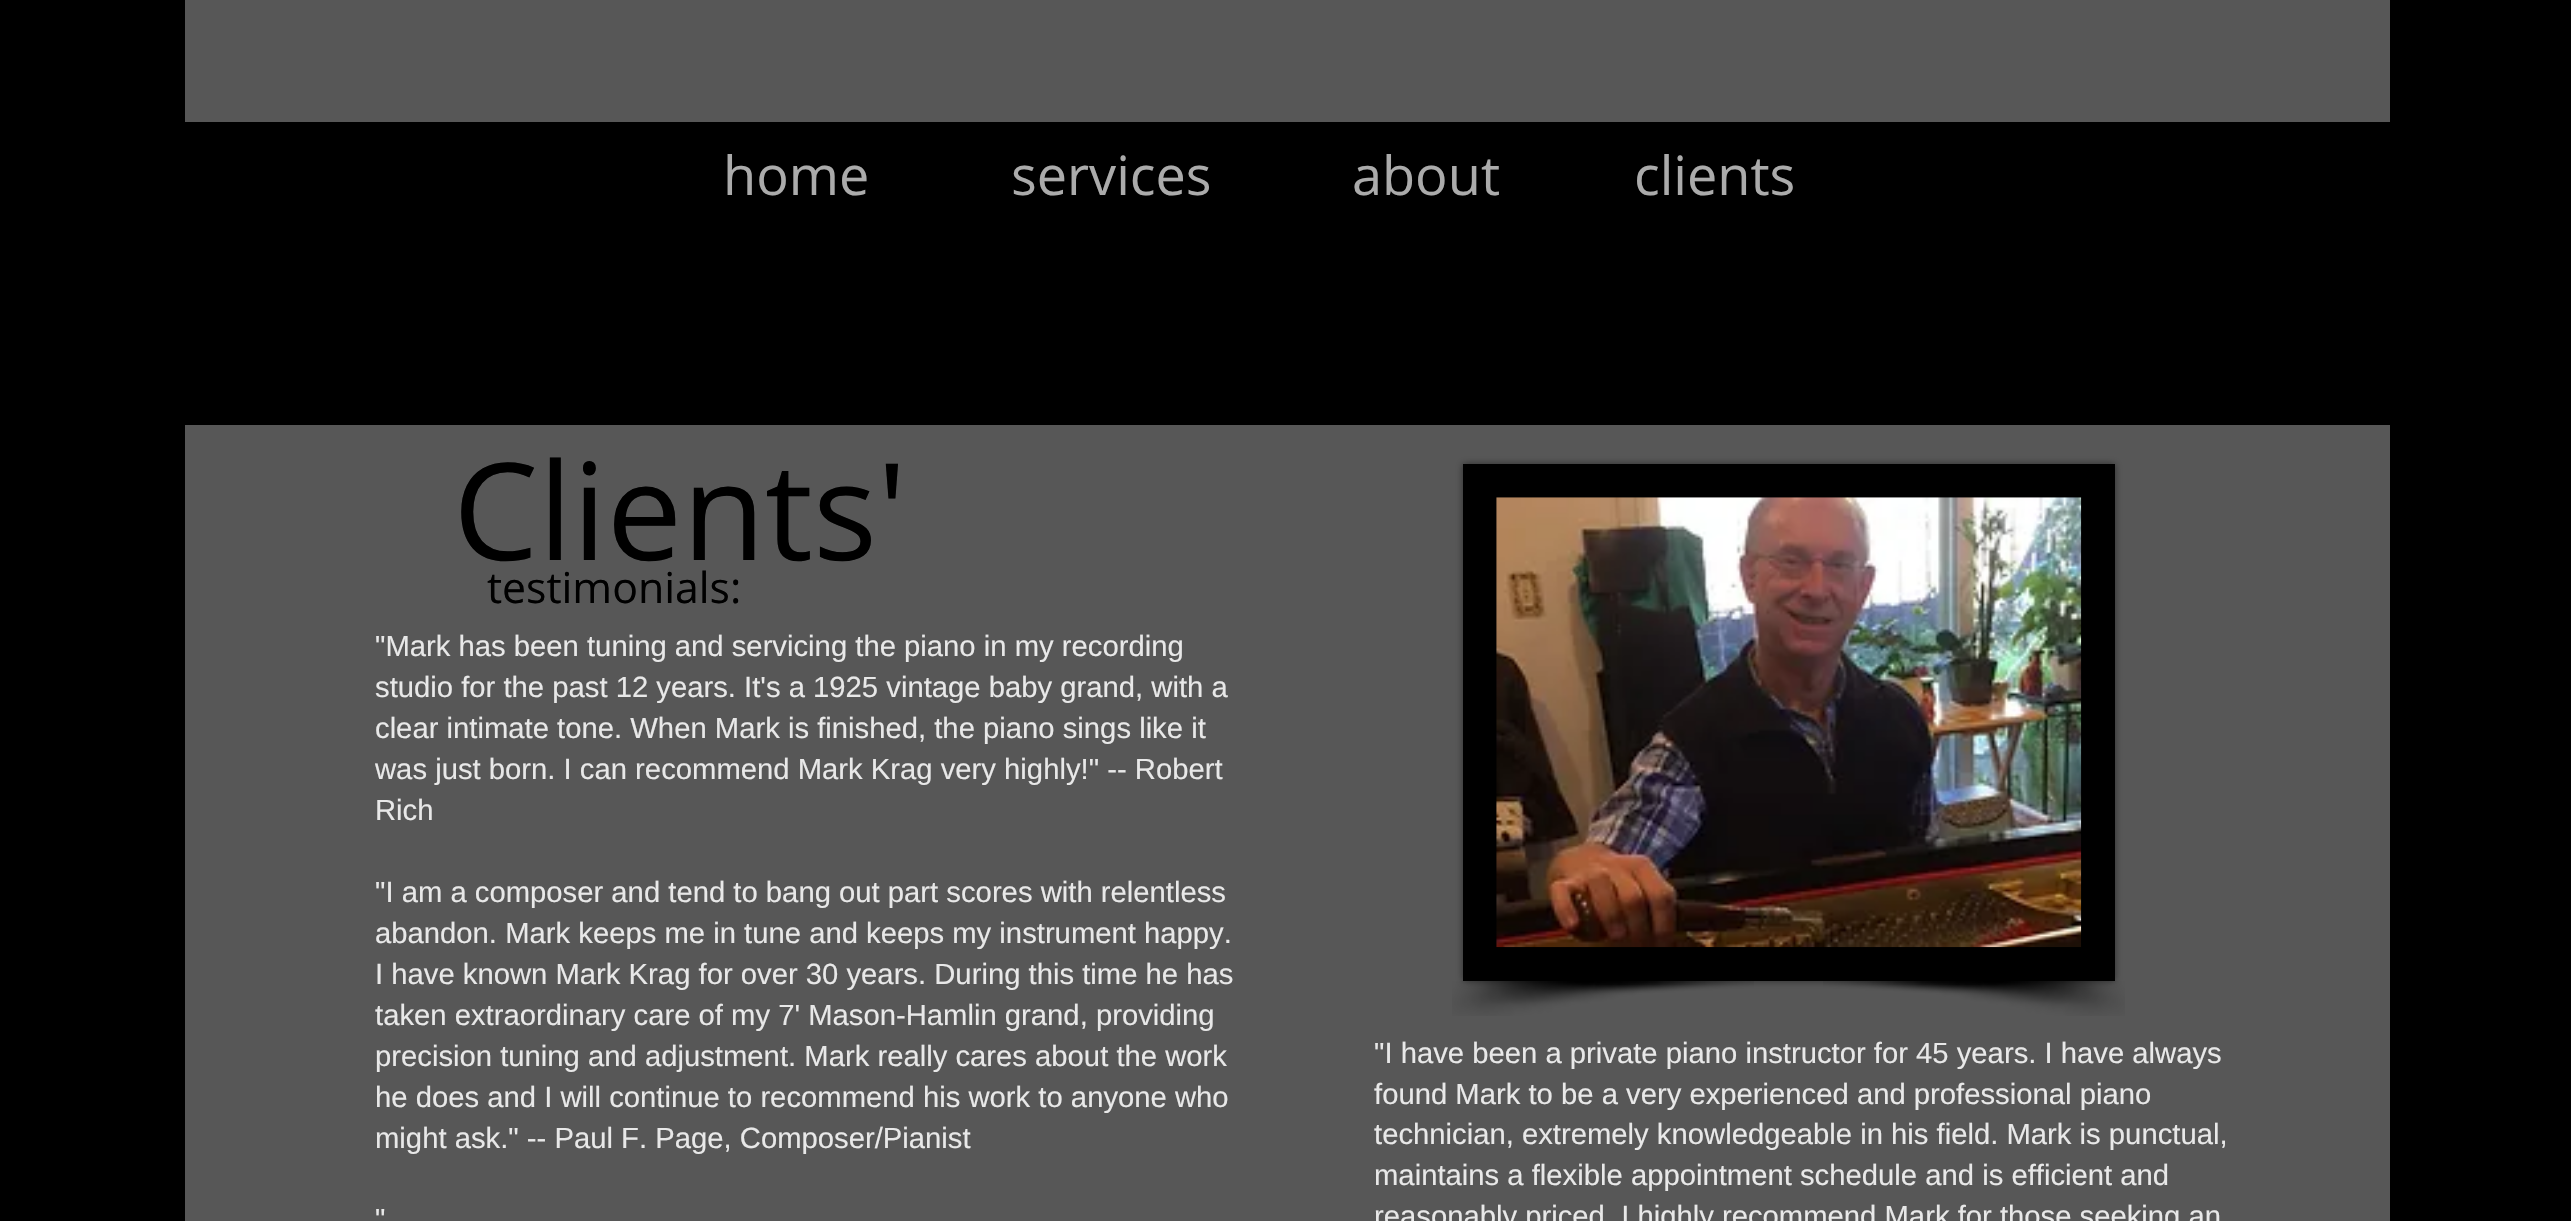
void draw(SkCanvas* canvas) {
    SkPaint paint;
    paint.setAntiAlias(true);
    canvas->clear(0xFF000000);
    paint.setColor(0xFF575757);
    canvas->drawRect(SkRect::MakeXYWH(185, 0, 2205, 122), paint);
    SkFont font1(fontMgr->matchFamilyStyle("Open Sans", SkFontStyle::Normal()), 54);
    font1.setSubpixel(true);
    paint.setColor(0xFFABABAB);
    canvas->drawString("home", 723, 195, font1, paint);
    canvas->drawString("services", 1011, 195, font1, paint);
    canvas->drawString("about", 1352, 195, font1, paint);
    canvas->drawString("clients", 1634, 195, font1, paint);
    paint.setColor(0xFF575757);
    canvas->drawRect(SkRect::MakeXYWH(185, 425, 2205, 796), paint);
    SkFont font2(fontMgr->matchFamilyStyle("Open Sans", SkFontStyle::Normal()), 135);
    font2.setSubpixel(true);
    paint.setColor(0xFF000000);
    canvas->drawString("Clients'", 453, 560, font2, paint);
    paint.setColor(0x80000000);
    paint.setMaskFilter(SkMaskFilter::MakeBlur(kNormal_SkBlurStyle, 3.5f));
    canvas->drawRect(SkRect::MakeXYWH(1463, 464, 652, 517), paint);
    paint.setMaskFilter(nullptr);
    paint.setColor(0xFF000000);
    canvas->drawRect(SkRect::MakeXYWH(1463, 464, 652, 517), paint);
    canvas->drawImageRect(SkImages::DeferredFromEncodedData(SkData::MakeFromFileName("img1.png")), SkRect::MakeXYWH(1496, 497, 586, 451), SkSamplingOptions());
    canvas->drawImageRect(SkImages::DeferredFromEncodedData(SkData::MakeFromFileName("img2.png")), SkRect::MakeXYWH(1452, 981, 302, 35), SkSamplingOptions());
    canvas->drawImageRect(SkImages::DeferredFromEncodedData(SkData::MakeFromFileName("img3.png")), SkRect::MakeXYWH(1823, 981, 302, 35), SkSamplingOptions());
    SkFont font3(fontMgr->matchFamilyStyle("Open Sans", SkFontStyle::Normal()), 42.75f);
    font3.setSubpixel(true);
    canvas->drawString("testimonials:", 487, 603, font3, paint);
    SkFont font4(fontMgr->matchFamilyStyle("Liberation Sans", SkFontStyle::Normal()), 29.25f);
    font4.setSubpixel(true);
    paint.setColor(0xFFE8E8E8);
    canvas->drawString("\"Mark has been tuning and servicing the piano in my recording", 375, 656, font4, paint);
    canvas->drawString("studio for the past 12 years. It's a 1925 vintage baby grand, with a", 375, 697, font4, paint);
    canvas->drawString("clear intimate tone. When Mark is finished, the piano sings like it", 375, 738, font4, paint);
    canvas->drawString("was just born. I can recommend Mark Krag very highly!\" -- Robert", 375, 779, font4, paint);
    canvas->drawString("Rich", 375, 820, font4, paint);
    canvas->drawString("\"I am a composer and tend to bang out part scores with relentless", 375, 902, font4, paint);
    canvas->drawString("abandon. Mark keeps me in tune and keeps my instrument happy.", 375, 943, font4, paint);
    canvas->drawString("I have known Mark Krag for over 30 years. During this time he has", 375, 984, font4, paint);
    canvas->drawString("taken extraordinary care of my 7' Mason-Hamlin grand, providing", 375, 1025, font4, paint);
    canvas->drawString("precision tuning and adjustment. Mark really cares about the work", 375, 1066, font4, paint);
    canvas->drawString("he does and I will continue to recommend his work to anyone who", 375, 1107, font4, paint);
    canvas->drawString("might ask.\" -- Paul F. Page, Composer/Pianist", 375, 1148, font4, paint);
    canvas->drawString("\"", 375, 1229, font4, paint);
    canvas->drawString("\"I have been a private piano instructor for 45 years. I have always", 1374, 1063, font4, paint);
    canvas->drawString("found Mark to be a very experienced and professional piano", 1374, 1104, font4, paint);
    canvas->drawString("technician, extremely knowledgeable in his field. Mark is punctual,", 1374, 1144, font4, paint);
    canvas->drawString("maintains a flexible appointment schedule and is efficient and", 1374, 1185, font4, paint);
    canvas->drawString("reasonably priced. I highly recommend Mark for those seeking an", 1374, 1226, font4, paint);
}
